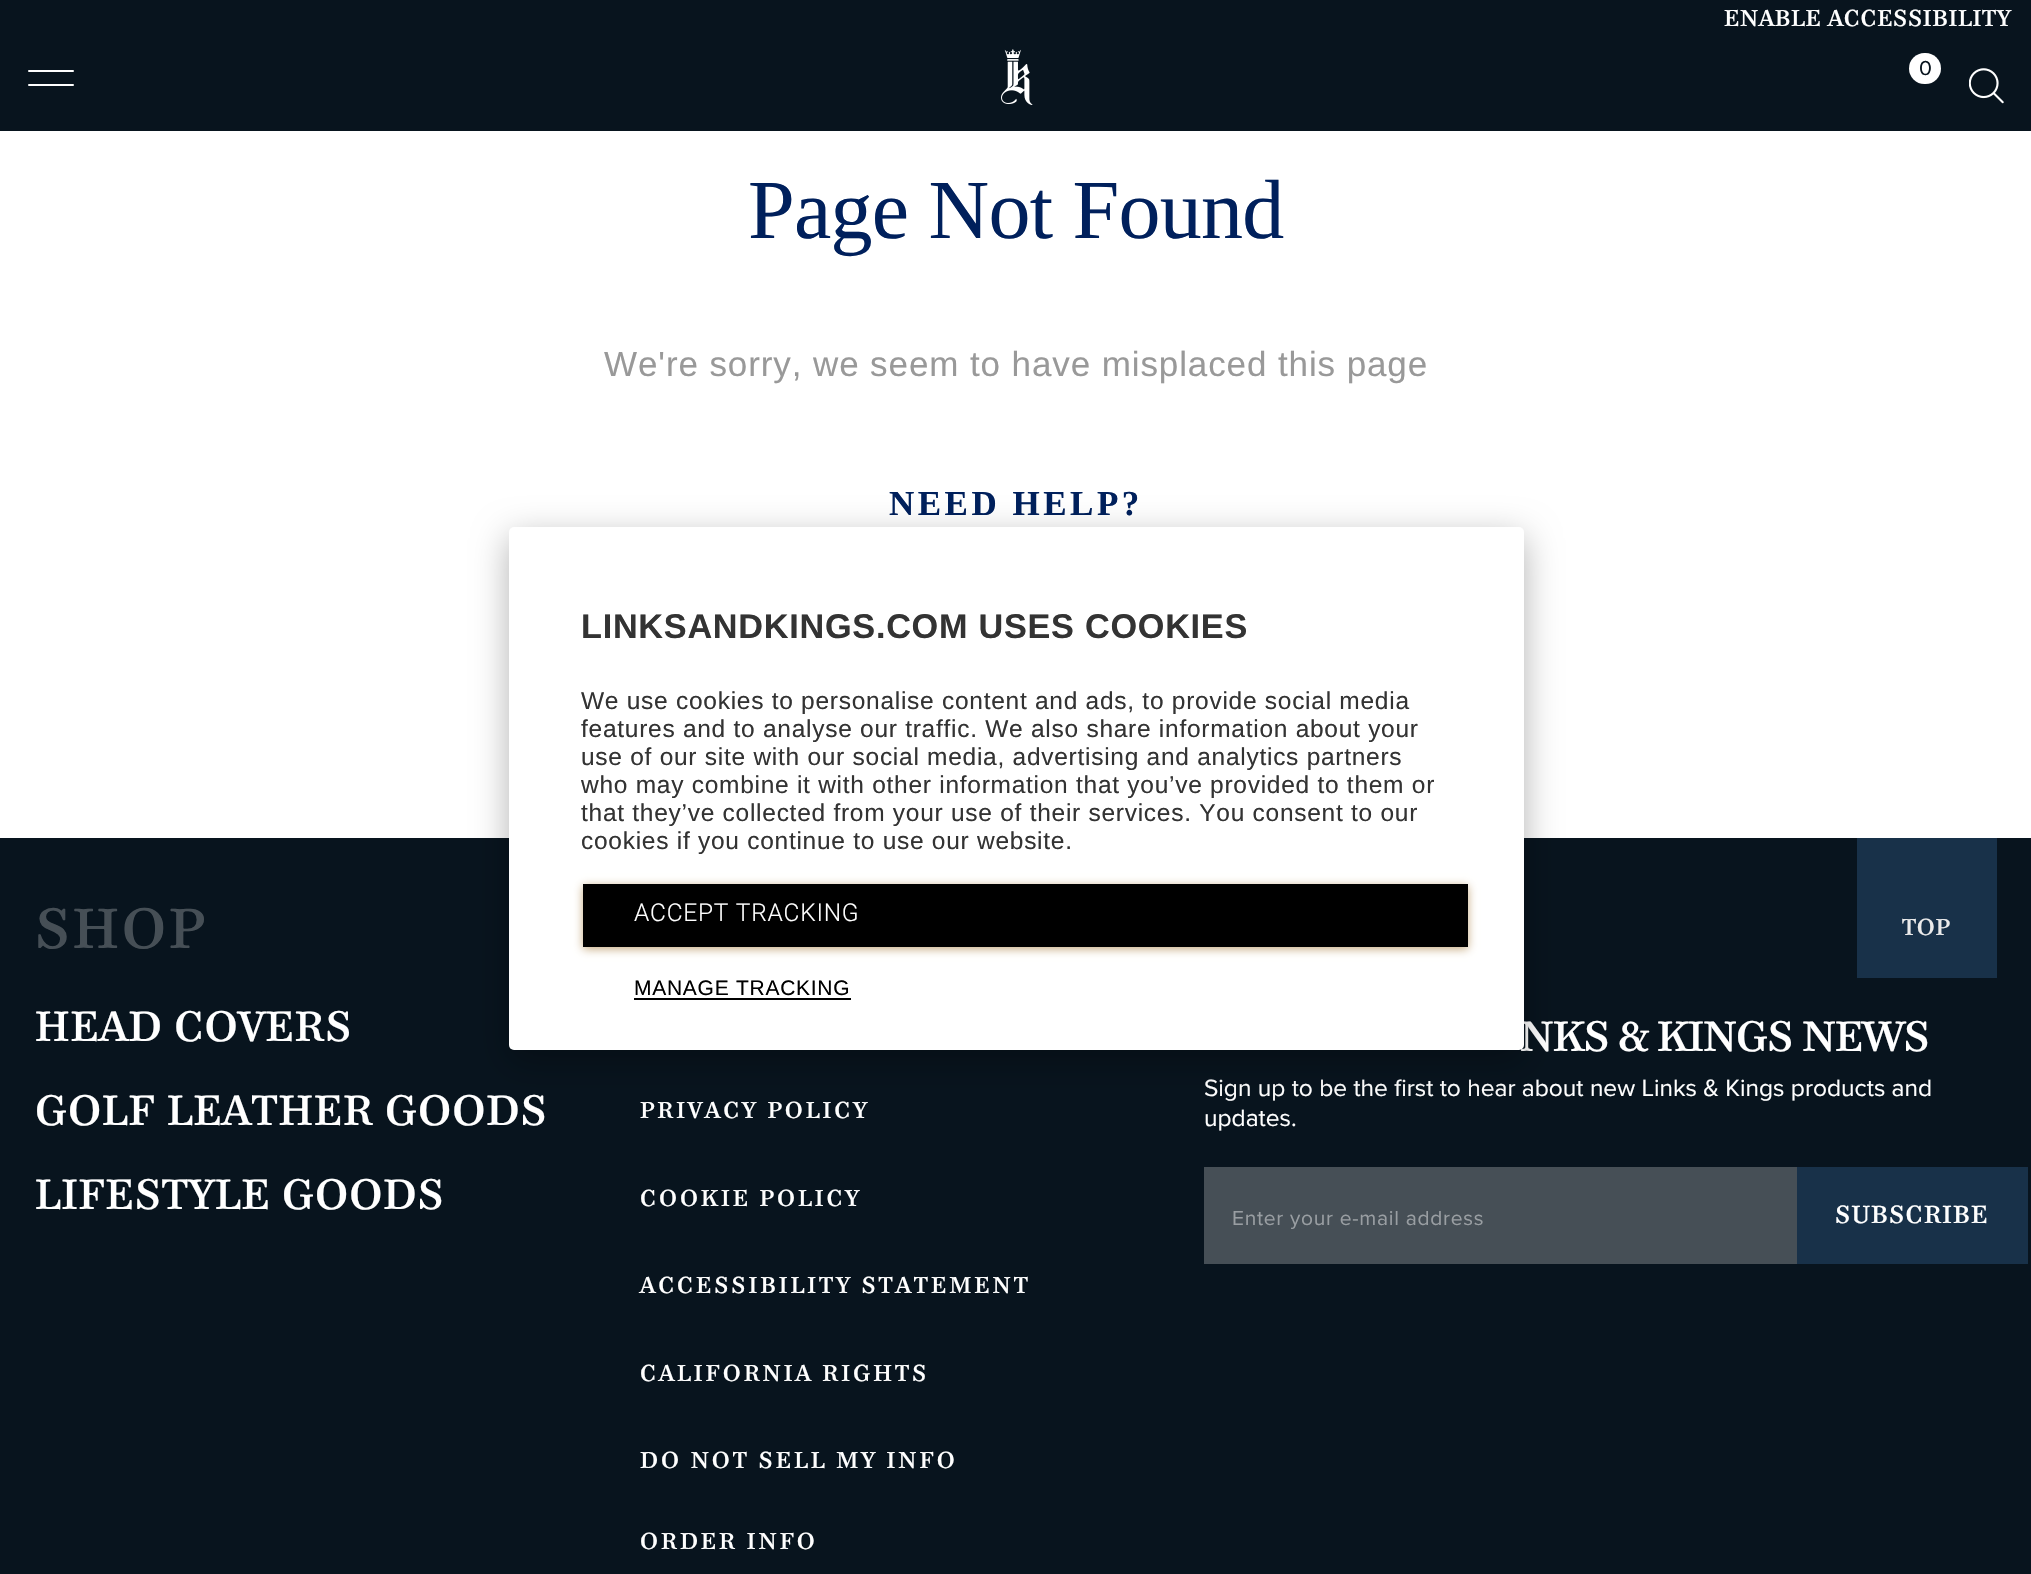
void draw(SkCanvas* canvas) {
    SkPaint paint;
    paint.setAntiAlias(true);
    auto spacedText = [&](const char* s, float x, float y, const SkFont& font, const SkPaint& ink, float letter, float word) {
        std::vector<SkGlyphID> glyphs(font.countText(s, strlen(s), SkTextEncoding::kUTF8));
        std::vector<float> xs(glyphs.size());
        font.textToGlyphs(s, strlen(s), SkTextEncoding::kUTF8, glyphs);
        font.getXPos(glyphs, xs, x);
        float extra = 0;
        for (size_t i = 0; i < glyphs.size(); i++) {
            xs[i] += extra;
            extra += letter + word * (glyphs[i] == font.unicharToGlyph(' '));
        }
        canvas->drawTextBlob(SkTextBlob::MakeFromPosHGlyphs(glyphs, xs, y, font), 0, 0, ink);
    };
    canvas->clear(0xFFFFFFFF);
    paint.setColor(0xFF08141E);
    canvas->drawRect(SkRect::MakeXYWH(0, 0, 2031, 131), paint);
    SkFont font1(fontMgr->matchFamilyStyle("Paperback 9", SkFontStyle::Normal()), 22.75f);
    font1.setSubpixel(true);
    paint.setColor(0xFFFFFFFF);
    spacedText("ENABLE ACCESSIBILITY", 1724, 26, font1, paint, 0.73f, 0);
    canvas->drawImageRect(SkImages::DeferredFromEncodedData(SkData::MakeFromFileName("img1.png")), SkRect::MakeXYWH(1001, 49, 32, 56), SkSamplingOptions());
    canvas->drawRoundRect(SkRect::MakeXYWH(1909, 53, 32, 31), 15.5f, 15.5f, paint);
    SkFont font2(fontMgr->matchFamilyStyle("Proxima Nova", SkFontStyle::Normal()), 21);
    font2.setSubpixel(true);
    paint.setColor(0xFF08141E);
    spacedText("0", 1919, 75, font2, paint, 0.73f, 0);
    canvas->drawImageRect(SkImages::DeferredFromEncodedData(SkData::MakeFromFileName("img2.png")), SkRect::MakeXYWH(1969, 68, 35, 36), SkSamplingOptions());
    paint.setColor(0xFFFFFFFF);
    canvas->drawRoundRect(SkRect::MakeXYWH(28, 70, 46, 2), 1, 1, paint);
    canvas->drawRoundRect(SkRect::MakeXYWH(28, 84, 46, 2), 1, 1, paint);
    SkFont font3(fontMgr->matchFamilyStyle("Liberation Serif", SkFontStyle::Normal()), 84);
    font3.setSubpixel(true);
    paint.setColor(0xFF00205C);
    spacedText("Page Not Found", 748, 238, font3, paint, -0.75f, 0);
    SkFont font4(fontMgr->matchFamilyStyle("Liberation Sans", SkFontStyle::Normal()), 35);
    font4.setSubpixel(true);
    paint.setColor(0xFF999999);
    spacedText("We're sorry, we seem to have misplaced this page", 604, 376, font4, paint, 0.9f, 0);
    SkFont font5(fontMgr->matchFamilyStyle("Liberation Serif", SkFontStyle::Bold()), 35);
    font5.setSubpixel(true);
    paint.setColor(0xFF00205C);
    spacedText("NEED HELP?", 889, 515, font5, paint, 3.5f, 0);
    paint.setColor(0xFF08141E);
    canvas->drawRect(SkRect::MakeXYWH(0, 838, 2031, 736), paint);
    SkFont font6(fontMgr->matchFamilyStyle("Paperback 9", SkFontStyle::Normal()), 56);
    font6.setSubpixel(true);
    paint.setColor(0xFF464F56);
    spacedText("SHOP", 35, 948, font6, paint, 3, 0);
    SkFont font7(fontMgr->matchFamilyStyle("Paperback 9", SkFontStyle::Normal()), 42);
    font7.setSubpixel(true);
    paint.setColor(0xFFFFFFFF);
    spacedText("HEAD COVERS", 35, 1041, font7, paint, 1, 0);
    spacedText("GOLF LEATHER GOODS", 35, 1125, font7, paint, 1, 0);
    spacedText("LIFESTYLE GOODS", 35, 1209, font7, paint, 1, 0);
    spacedText("PRIVACY POLICY", 640, 1118, font1, paint, 3, 0);
    spacedText("COOKIE POLICY", 640, 1206, font1, paint, 3, 0);
    spacedText("ACCESSIBILITY STATEMENT", 640, 1293, font1, paint, 3, 0);
    spacedText("CALIFORNIA RIGHTS", 640, 1381, font1, paint, 3, 0);
    spacedText("DO NOT SELL MY INFO", 640, 1468, font1, paint, 3, 0);
    spacedText("ORDER INFO", 640, 1549, font1, paint, 3, 0);
    spacedText("NKS & KINGS NEWS", 1520, 1051, font7, paint, -0.75f, 0);
    SkFont font8(fontMgr->matchFamilyStyle("Proxima Nova", SkFontStyle::Normal()), 24.5f);
    font8.setSubpixel(true);
    canvas->drawString("Sign up to be the first to hear about new Links & Kings products and", 1204, 1096, font8, paint);
    canvas->drawString("updates.", 1204, 1126, font8, paint);
    paint.setColor(0xFF464F56);
    canvas->drawRect(SkRect::MakeXYWH(1204, 1167, 593, 97), paint);
    paint.setColor(0xFF999EA2);
    spacedText("Enter your e-mail address", 1232, 1225, font2, paint, 0.7f, 0);
    paint.setColor(0xFF183149);
    canvas->drawRect(SkRect::MakeXYWH(1797, 1167, 231, 97), paint);
    SkFont font9(fontMgr->matchFamilyStyle("Paperback 9", SkFontStyle::Normal()), 24.5f);
    font9.setSubpixel(true);
    paint.setColor(0xFFFFFFFF);
    spacedText("SUBSCRIBE", 1835, 1223, font9, paint, 1.25f, 0);
    paint.setColor(0xFF183149);
    canvas->drawRect(SkRect::MakeXYWH(1857, 838, 140, 140), paint);
    paint.setColor(0xFFEBEBEB);
    spacedText("TOP", 1902, 935, font1, paint, 0.73f, 0);
    paint.setColor(0x4D000000);
    paint.setMaskFilter(SkMaskFilter::MakeBlur(kNormal_SkBlurStyle, 17.5f));
    canvas->drawRoundRect(SkRect::MakeXYWH(509, 537, 1015, 524), 5, 5, paint);
    paint.setMaskFilter(nullptr);
    paint.setColor(0xFFFFFFFF);
    canvas->drawRoundRect(SkRect::MakeXYWH(509, 527, 1015, 523), 5, 5, paint);
    SkFont font10(fontMgr->matchFamilyStyle("Liberation Sans", SkFontStyle::Bold()), 34.25f);
    font10.setSubpixel(true);
    paint.setColor(0xFF333333);
    spacedText("LINKSANDKINGS.COM USES COOKIES", 581, 638, font10, paint, 0.73f, 0);
    SkFont font11(fontMgr->matchFamilyStyle("Liberation Sans", SkFontStyle::Normal()), 24.5f);
    font11.setSubpixel(true);
    spacedText("We use cookies to personalise content and ads, to provide social media", 581, 709, font11, paint, 0.73f, 0);
    spacedText("features and to analyse our traffic. We also share information about your", 581, 737, font11, paint, 0.73f, 0);
    spacedText("use of our site with our social media, advertising and analytics partners", 581, 765, font11, paint, 0.73f, 0);
    spacedText("who may combine it with other information that you’ve provided to them or", 581, 793, font11, paint, 0.73f, 0);
    spacedText("that they’ve collected from your use of their services. You consent to our", 581, 821, font11, paint, 0.73f, 0);
    spacedText("cookies if you continue to use our website.", 581, 849, font11, paint, 0.73f, 0);
    paint.setColor(0x808B5300);
    paint.setMaskFilter(SkMaskFilter::MakeBlur(kNormal_SkBlurStyle, 4.5f));
    canvas->drawRect(SkRect::MakeXYWH(583, 886, 885, 63), paint);
    paint.setMaskFilter(nullptr);
    paint.setColor(0xFF000000);
    canvas->drawRect(SkRect::MakeXYWH(583, 884, 885, 63), paint);
    SkFont font12(fontMgr->matchFamilyStyle("Roboto", SkFontStyle(300, SkFontStyle::kNormal_Width, SkFontStyle::kUpright_Slant)), 24.5f);
    font12.setSubpixel(true);
    paint.setColor(0xFFFFFFFF);
    spacedText("ACCEPT TRACKING", 634, 921, font12, paint, 0.73f, 0);
    SkFont font13(fontMgr->matchFamilyStyle("Liberation Sans", SkFontStyle::Normal()), 21);
    font13.setSubpixel(true);
    paint.setColor(0xFF000000);
    spacedText("MANAGE TRACKING", 634, 995, font13, paint, 0.73f, 0);
    canvas->drawRect(SkRect::MakeXYWH(634, 998, 217, 2), paint);
}
